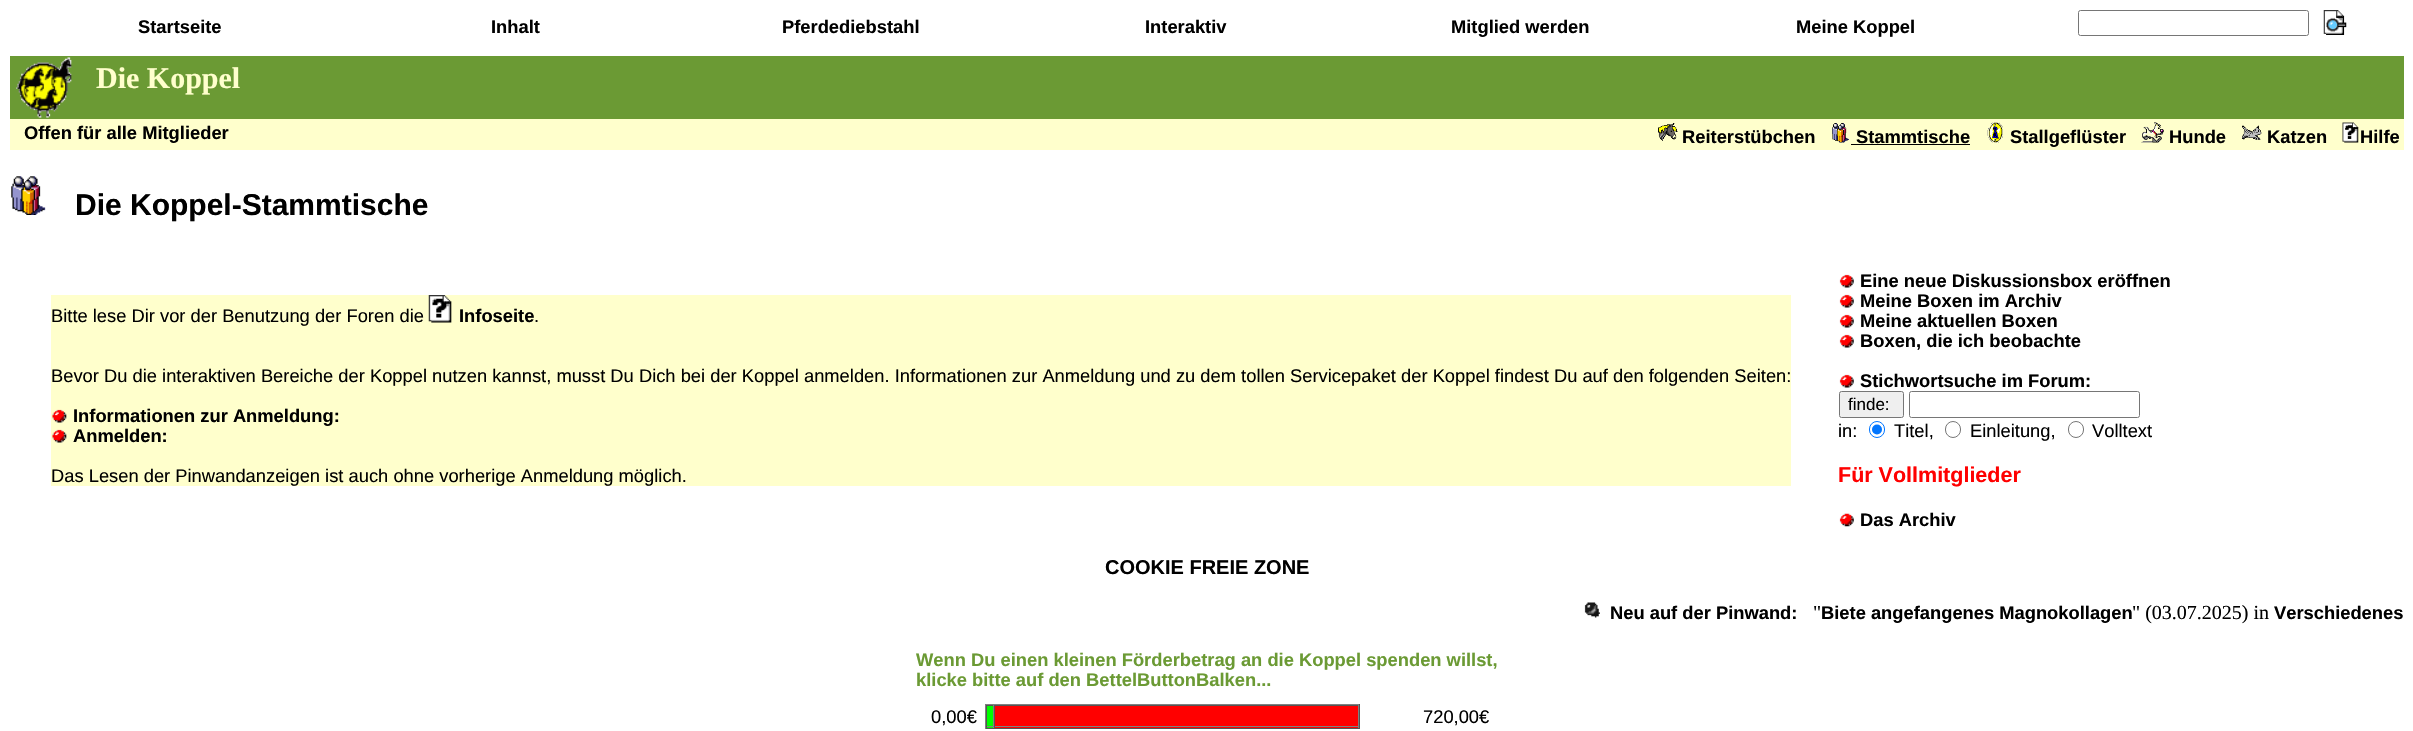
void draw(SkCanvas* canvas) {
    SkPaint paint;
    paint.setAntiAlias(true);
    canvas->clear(0xFFFFFFFF);
    SkFont font1(fontMgr->matchFamilyStyle("Liberation Sans", SkFontStyle::Bold()), 18.33f);
    font1.setSubpixel(true);
    paint.setColor(0xFF000000);
    canvas->drawString("Startseite", 138, 33, font1, paint);
    canvas->drawString("Inhalt", 491, 33, font1, paint);
    canvas->drawString("Pferdediebstahl", 782, 33, font1, paint);
    canvas->drawString("Interaktiv", 1145, 33, font1, paint);
    canvas->drawString("Mitglied werden", 1451, 33, font1, paint);
    canvas->drawString("Meine Koppel", 1796, 33, font1, paint);
    paint.setStyle(SkPaint::kStroke_Style);
    paint.setStrokeWidth(1);
    paint.setColor(0xFF767676);
    canvas->drawRoundRect(SkRect::MakeXYWH(2078.5f, 10.5f, 230, 25), 2, 2, paint);
    canvas->drawImageRect(SkImages::DeferredFromEncodedData(SkData::MakeFromFileName("img1.png")), SkRect::MakeXYWH(2323, 10, 24, 25), SkSamplingOptions());
    paint.setStyle(SkPaint::kFill_Style);
    paint.setColor(0xFF6B9A34);
    canvas->drawRect(SkRect::MakeXYWH(10, 56, 2394, 63), paint);
    canvas->drawImageRect(SkImages::DeferredFromEncodedData(SkData::MakeFromFileName("img2.png")), SkRect::MakeXYWH(16, 57, 56, 61), SkSamplingOptions());
    SkFont font2(fontMgr->matchFamilyStyle("Liberation Serif", SkFontStyle::Bold()), 30);
    font2.setSubpixel(true);
    paint.setColor(0xFFFFFFCC);
    canvas->drawString("Die Koppel", 96, 88, font2, paint);
    canvas->drawRect(SkRect::MakeXYWH(10, 119, 2394, 31), paint);
    paint.setColor(0xFF000000);
    canvas->drawString("Offen für alle Mitglieder", 24, 139, font1, paint);
    canvas->drawImageRect(SkImages::DeferredFromEncodedData(SkData::MakeFromFileName("img3.png")), SkRect::MakeXYWH(1658, 123, 20, 18), SkSamplingOptions());
    canvas->drawString("Reiterstübchen", 1682, 143, font1, paint);
    canvas->drawImageRect(SkImages::DeferredFromEncodedData(SkData::MakeFromFileName("img4.png")), SkRect::MakeXYWH(1832, 123, 17, 20), SkSamplingOptions());
    canvas->drawString("Stammtische", 1856, 143, font1, paint);
    canvas->drawRect(SkRect::MakeXYWH(1851, 144, 119, 1), paint);
    canvas->drawImageRect(SkImages::DeferredFromEncodedData(SkData::MakeFromFileName("img5.png")), SkRect::MakeXYWH(1987, 122, 16, 21), SkSamplingOptions());
    canvas->drawString("Stallgeflüster", 2010, 143, font1, paint);
    canvas->drawImageRect(SkImages::DeferredFromEncodedData(SkData::MakeFromFileName("img6.png")), SkRect::MakeXYWH(2141, 122, 23, 21), SkSamplingOptions());
    canvas->drawString("Hunde", 2169, 143, font1, paint);
    canvas->drawImageRect(SkImages::DeferredFromEncodedData(SkData::MakeFromFileName("img7.png")), SkRect::MakeXYWH(2242, 125, 20, 15), SkSamplingOptions());
    canvas->drawString("Katzen", 2267, 143, font1, paint);
    canvas->drawImageRect(SkImages::DeferredFromEncodedData(SkData::MakeFromFileName("img8.png")), SkRect::MakeXYWH(2342, 122, 17, 21), SkSamplingOptions());
    canvas->drawString("Hilfe", 2360, 143, font1, paint);
    canvas->drawImageRect(SkImages::DeferredFromEncodedData(SkData::MakeFromFileName("img9.png")), SkRect::MakeXYWH(11, 176, 35, 39), SkSamplingOptions());
    SkFont font3(fontMgr->matchFamilyStyle("Liberation Sans", SkFontStyle::Bold()), 30);
    font3.setSubpixel(true);
    canvas->drawString("Die Koppel-Stammtische", 75, 215, font3, paint);
    paint.setColor(0xFFFFFFCC);
    canvas->drawRect(SkRect::MakeXYWH(51, 295, 1740, 191), paint);
    SkFont font4(fontMgr->matchFamilyStyle("Liberation Sans", SkFontStyle::Normal()), 18.33f);
    font4.setSubpixel(true);
    paint.setColor(0xFF000000);
    canvas->drawString("Bitte lese Dir vor der Benutzung der Foren die", 51, 322, font4, paint);
    canvas->drawImageRect(SkImages::DeferredFromEncodedData(SkData::MakeFromFileName("img10.png")), SkRect::MakeXYWH(428, 295, 24, 28), SkSamplingOptions());
    canvas->drawString("Infoseite", 459, 322, font1, paint);
    canvas->drawString(".", 534, 322, font4, paint);
    canvas->drawString("Bevor Du die interaktiven Bereiche der Koppel nutzen kannst, musst Du Dich bei der Koppel anmelden. Informationen zur Anmeldung und zu dem tollen Servicepaket der Koppel findest Du auf den folgenden Seiten:", 51, 382, font4, paint);
    canvas->drawImageRect(SkImages::DeferredFromEncodedData(SkData::MakeFromFileName("img11.png")), SkRect::MakeXYWH(52, 409, 15, 14), SkSamplingOptions());
    canvas->drawString("Informationen zur Anmeldung:", 73, 422, font1, paint);
    canvas->drawImageRect(SkImages::DeferredFromEncodedData(SkData::MakeFromFileName("img11.png")), SkRect::MakeXYWH(52, 429, 15, 14), SkSamplingOptions());
    canvas->drawString("Anmelden:", 73, 442, font1, paint);
    canvas->drawString("Das Lesen der Pinwandanzeigen ist auch ohne vorherige Anmeldung möglich.", 51, 482, font4, paint);
    canvas->drawImageRect(SkImages::DeferredFromEncodedData(SkData::MakeFromFileName("img12.png")), SkRect::MakeXYWH(1839, 274, 15, 14), SkSamplingOptions());
    canvas->drawString("Eine neue Diskussionsbox eröffnen", 1860, 287, font1, paint);
    canvas->drawImageRect(SkImages::DeferredFromEncodedData(SkData::MakeFromFileName("img13.png")), SkRect::MakeXYWH(1839, 294, 15, 14), SkSamplingOptions());
    canvas->drawString("Meine Boxen im Archiv", 1860, 307, font1, paint);
    canvas->drawImageRect(SkImages::DeferredFromEncodedData(SkData::MakeFromFileName("img12.png")), SkRect::MakeXYWH(1839, 314, 15, 14), SkSamplingOptions());
    canvas->drawString("Meine aktuellen Boxen", 1860, 327, font1, paint);
    canvas->drawImageRect(SkImages::DeferredFromEncodedData(SkData::MakeFromFileName("img12.png")), SkRect::MakeXYWH(1839, 334, 15, 14), SkSamplingOptions());
    canvas->drawString("Boxen, die ich beobachte", 1860, 347, font1, paint);
    canvas->drawImageRect(SkImages::DeferredFromEncodedData(SkData::MakeFromFileName("img12.png")), SkRect::MakeXYWH(1839, 374, 15, 14), SkSamplingOptions());
    canvas->drawString("Stichwortsuche im Forum:", 1860, 387, font1, paint);
    paint.setColor(0xFFEFEFEF);
    canvas->drawRoundRect(SkRect::MakeXYWH(1839.5f, 391.5f, 64, 26), 2, 2, paint);
    paint.setStyle(SkPaint::kStroke_Style);
    paint.setColor(0xFF767676);
    canvas->drawRoundRect(SkRect::MakeXYWH(1839.5f, 391.5f, 64, 26), 2, 2, paint);
    SkFont font5(fontMgr->matchFamilyStyle("Liberation Sans", SkFontStyle::Normal()), 17);
    font5.setSubpixel(true);
    paint.setStyle(SkPaint::kFill_Style);
    paint.setColor(0xFF000000);
    canvas->drawString("finde:", 1848, 410, font5, paint);
    paint.setStyle(SkPaint::kStroke_Style);
    paint.setColor(0xFF767676);
    canvas->drawRoundRect(SkRect::MakeXYWH(1909.5f, 391.5f, 230, 26), 2, 2, paint);
    paint.setStyle(SkPaint::kFill_Style);
    paint.setColor(0xFF000000);
    canvas->drawString("in:", 1838, 437, font4, paint);
    paint.setStyle(SkPaint::kStroke_Style);
    paint.setColor(0xFF0075FF);
    canvas->drawRoundRect(SkRect::MakeXYWH(1869.5f, 421.5f, 15, 16), 7.5f, 7.5f, paint);
    paint.setStyle(SkPaint::kFill_Style);
    canvas->drawCircle(1877, 429.5f, 5, paint);
    paint.setColor(0xFF000000);
    canvas->drawString("Titel,", 1894, 437, font4, paint);
    paint.setStyle(SkPaint::kStroke_Style);
    paint.setColor(0xFF767676);
    canvas->drawRoundRect(SkRect::MakeXYWH(1945.5f, 421.5f, 15, 16), 7.5f, 7.5f, paint);
    paint.setStyle(SkPaint::kFill_Style);
    paint.setColor(0xFF000000);
    canvas->drawString("Einleitung,", 1970, 437, font4, paint);
    paint.setStyle(SkPaint::kStroke_Style);
    paint.setColor(0xFF767676);
    canvas->drawRoundRect(SkRect::MakeXYWH(2068.5f, 421.5f, 15, 16), 7.5f, 7.5f, paint);
    paint.setStyle(SkPaint::kFill_Style);
    paint.setColor(0xFF000000);
    canvas->drawString("Volltext", 2092, 437, font4, paint);
    SkFont font6(fontMgr->matchFamilyStyle("Liberation Sans", SkFontStyle::Bold()), 21.5f);
    font6.setSubpixel(true);
    paint.setColor(0xFFFF0000);
    canvas->drawString("Für Vollmitglieder", 1838, 482, font6, paint);
    canvas->drawImageRect(SkImages::DeferredFromEncodedData(SkData::MakeFromFileName("img14.png")), SkRect::MakeXYWH(1839, 513, 15, 14), SkSamplingOptions());
    paint.setColor(0xFF000000);
    canvas->drawString("Das Archiv", 1860, 526, font1, paint);
    SkFont font7(fontMgr->matchFamilyStyle("Liberation Sans", SkFontStyle::Bold()), 20);
    font7.setSubpixel(true);
    canvas->drawString("COOKIE FREIE ZONE", 1105, 574, font7, paint);
    canvas->drawImageRect(SkImages::DeferredFromEncodedData(SkData::MakeFromFileName("img15.png")), SkRect::MakeXYWH(1584, 602, 16, 16), SkSamplingOptions());
    canvas->drawString("Neu auf der Pinwand:", 1610, 619, font1, paint);
    SkFont font8(fontMgr->matchFamilyStyle("Liberation Serif", SkFontStyle::Normal()), 20);
    font8.setSubpixel(true);
    canvas->drawString("\"", 1813, 619, font8, paint);
    canvas->drawString("Biete angefangenes Magnokollagen", 1821, 619, font1, paint);
    canvas->drawString("\" (03.07.2025) in", 2132, 619, font8, paint);
    canvas->drawString("Verschiedenes", 2274, 619, font1, paint);
    paint.setColor(0xFF6B9A34);
    canvas->drawString("Wenn Du einen kleinen Förderbetrag an die Koppel spenden willst,", 916, 666, font1, paint);
    canvas->drawString("klicke bitte auf den BettelButtonBalken...", 916, 686, font1, paint);
    paint.setColor(0xFF000000);
    canvas->drawString("0,00€", 931, 723, font4, paint);
    paint.setColor(0xFF808080);
    canvas->drawRect(SkRect::MakeXYWH(985, 704, 375, 1), paint);
    paint.setColor(0xFF555555);
    canvas->drawRect(SkRect::MakeXYWH(1359, 704, 1, 25), paint);
    canvas->drawRect(SkRect::MakeXYWH(985, 728, 375, 1), paint);
    paint.setColor(0xFF808080);
    canvas->drawRect(SkRect::MakeXYWH(985, 704, 1, 25), paint);
    paint.setColor(0xFF00FF00);
    canvas->drawRect(SkRect::MakeXYWH(987, 705, 6, 23), paint);
    paint.setColor(0xFF555555);
    canvas->drawRect(SkRect::MakeXYWH(986, 705, 373, 1), paint);
    paint.setColor(0xFF808080);
    canvas->drawRect(SkRect::MakeXYWH(993, 705, 1, 23), paint);
    canvas->drawRect(SkRect::MakeXYWH(986, 726, 8, 1), paint);
    paint.setColor(0xFF555555);
    canvas->drawRect(SkRect::MakeXYWH(986, 705, 1, 23), paint);
    paint.setColor(0xFFFF0000);
    canvas->drawRect(SkRect::MakeXYWH(995, 706, 363, 22), paint);
    paint.setColor(0xFF808080);
    canvas->drawRect(SkRect::MakeXYWH(1358, 705, 1, 23), paint);
    canvas->drawRect(SkRect::MakeXYWH(994, 726, 365, 1), paint);
    paint.setColor(0xFF555555);
    canvas->drawRect(SkRect::MakeXYWH(994, 705, 1, 23), paint);
    paint.setColor(0xFF000000);
    canvas->drawString("720,00€", 1423, 723, font4, paint);
}
